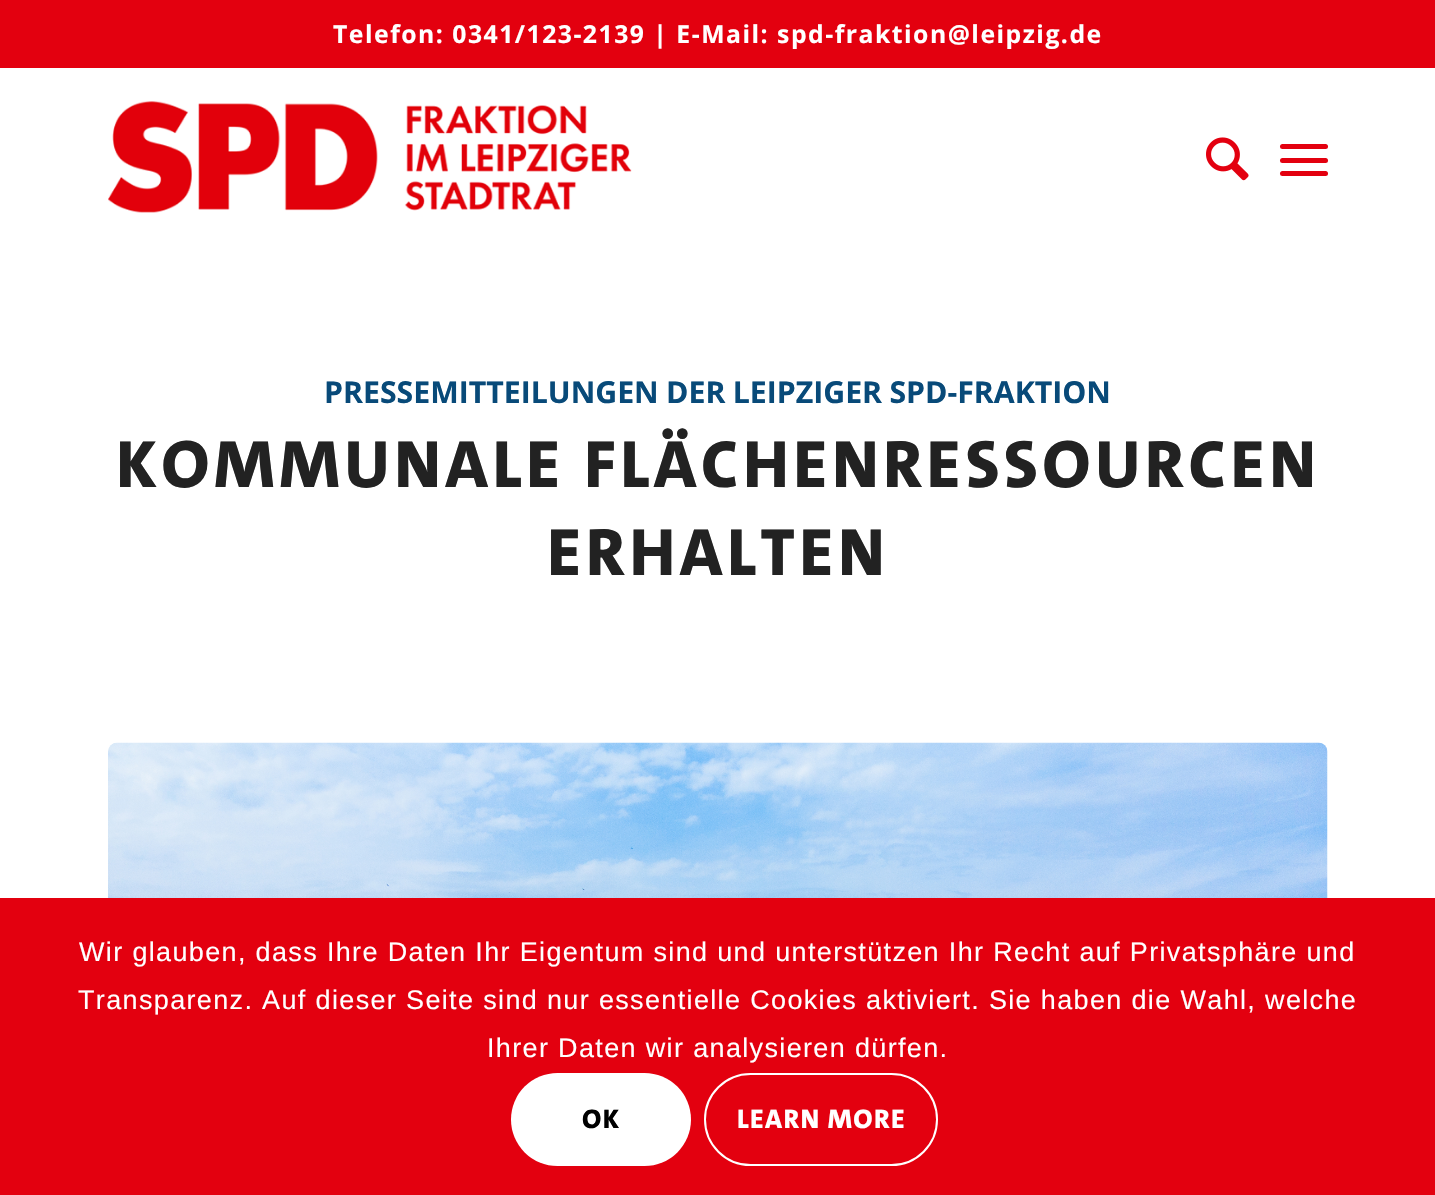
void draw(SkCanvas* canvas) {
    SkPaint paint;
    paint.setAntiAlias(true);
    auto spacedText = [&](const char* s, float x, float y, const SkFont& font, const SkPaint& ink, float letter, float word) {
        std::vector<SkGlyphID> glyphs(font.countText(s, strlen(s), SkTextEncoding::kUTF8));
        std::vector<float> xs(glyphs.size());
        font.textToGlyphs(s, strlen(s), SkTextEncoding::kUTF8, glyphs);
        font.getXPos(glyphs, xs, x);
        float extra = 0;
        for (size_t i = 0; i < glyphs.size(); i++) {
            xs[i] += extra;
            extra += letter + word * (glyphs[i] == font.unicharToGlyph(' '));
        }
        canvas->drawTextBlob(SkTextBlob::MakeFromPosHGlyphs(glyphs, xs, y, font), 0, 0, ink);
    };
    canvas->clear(0xFFFFFFFF);
    paint.setColor(0xFFE3000F);
    canvas->drawRect(SkRect::MakeXYWH(0, 0, 1435, 68), paint);
    SkFont font1(fontMgr->matchFamilyStyle("Open Sans", SkFontStyle::Bold()), 24.75f);
    font1.setSubpixel(true);
    paint.setColor(0xFFFFFFFF);
    spacedText("Telefon: 0341/123-2139 | E-Mail: spd-fraktion@leipzig.de", 333, 43, font1, paint, 1.5f, 0);
    canvas->drawImageRect(SkImages::DeferredFromEncodedData(SkData::MakeFromFileName("img1.png")), SkRect::MakeXYWH(108, 101, 524, 112), SkSamplingOptions());
    canvas->drawImageRect(SkImages::DeferredFromEncodedData(SkData::MakeFromFileName("img2.png")), SkRect::MakeXYWH(1206, 137, 43, 44), SkSamplingOptions());
    paint.setColor(0xFFE3000F);
    canvas->drawRoundRect(SkRect::MakeXYWH(1280, 158, 48, 5), 2.5f, 2.5f, paint);
    canvas->drawRoundRect(SkRect::MakeXYWH(1280, 144, 48, 5), 2.5f, 2.5f, paint);
    canvas->drawRoundRect(SkRect::MakeXYWH(1280, 171, 48, 5), 2.5f, 2.5f, paint);
    SkFont font2(fontMgr->matchFamilyStyle("Open Sans", SkFontStyle::Bold()), 30.25f);
    font2.setSubpixel(true);
    paint.setColor(0xFF084A79);
    spacedText("PRESSEMITTEILUNGEN DER LEIPZIGER SPD-FRAKTION", 324, 403, font2, paint, 0, -0.5f);
    SkFont font3(fontMgr->matchFamilyStyle("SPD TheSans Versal", SkFontStyle(800, SkFontStyle::kNormal_Width, SkFontStyle::kUpright_Slant)), 67.5f);
    font3.setSubpixel(true);
    paint.setColor(0xFF222222);
    spacedText("KOMMUNALE FLÄCHENRESSOURCEN", 116, 487, font3, paint, 4.5f, 0);
    spacedText("ERHALTEN", 547, 575, font3, paint, 4.5f, 0);
    canvas->drawImageRect(SkImages::DeferredFromEncodedData(SkData::MakeFromFileName("img3.png")), SkRect::MakeXYWH(108, 742, 1220, 156), SkSamplingOptions());
    paint.setColor(0xFFE3000F);
    canvas->drawRect(SkRect::MakeXYWH(0, 898, 1435, 297), paint);
    SkFont font4(fontMgr->matchFamilyStyle("Liberation Sans", SkFontStyle::Normal()), 27);
    font4.setSubpixel(true);
    paint.setColor(0xFFFFFFFF);
    spacedText("Wir glauben, dass Ihre Daten Ihr Eigentum sind und unterstützen Ihr Recht auf Privatsphäre und", 79, 961, font4, paint, 1.35f, 0);
    spacedText("Transparenz. Auf dieser Seite sind nur essentielle Cookies aktiviert. Sie haben die Wahl, welche", 78, 1009, font4, paint, 1.35f, 0);
    spacedText("Ihrer Daten wir analysieren dürfen.", 487, 1057, font4, paint, 1.35f, 0);
    canvas->drawRoundRect(SkRect::MakeXYWH(511, 1073, 180, 93), 46.5f, 46.5f, paint);
    SkFont font5(fontMgr->matchFamilyStyle("SPD TheSans Versal", SkFontStyle(800, SkFontStyle::kNormal_Width, SkFontStyle::kUpright_Slant)), 27);
    font5.setSubpixel(true);
    paint.setColor(0xFF000000);
    spacedText("OK", 582, 1128, font5, paint, 1.35f, 0);
    paint.setStyle(SkPaint::kStroke_Style);
    paint.setStrokeWidth(2);
    paint.setColor(0xFFFFFFFF);
    canvas->drawRoundRect(SkRect::MakeXYWH(705, 1074, 232, 91), 45.5f, 45.5f, paint);
    paint.setStyle(SkPaint::kFill_Style);
    spacedText("Learn More", 737, 1128, font5, paint, 1.35f, 0);
}
